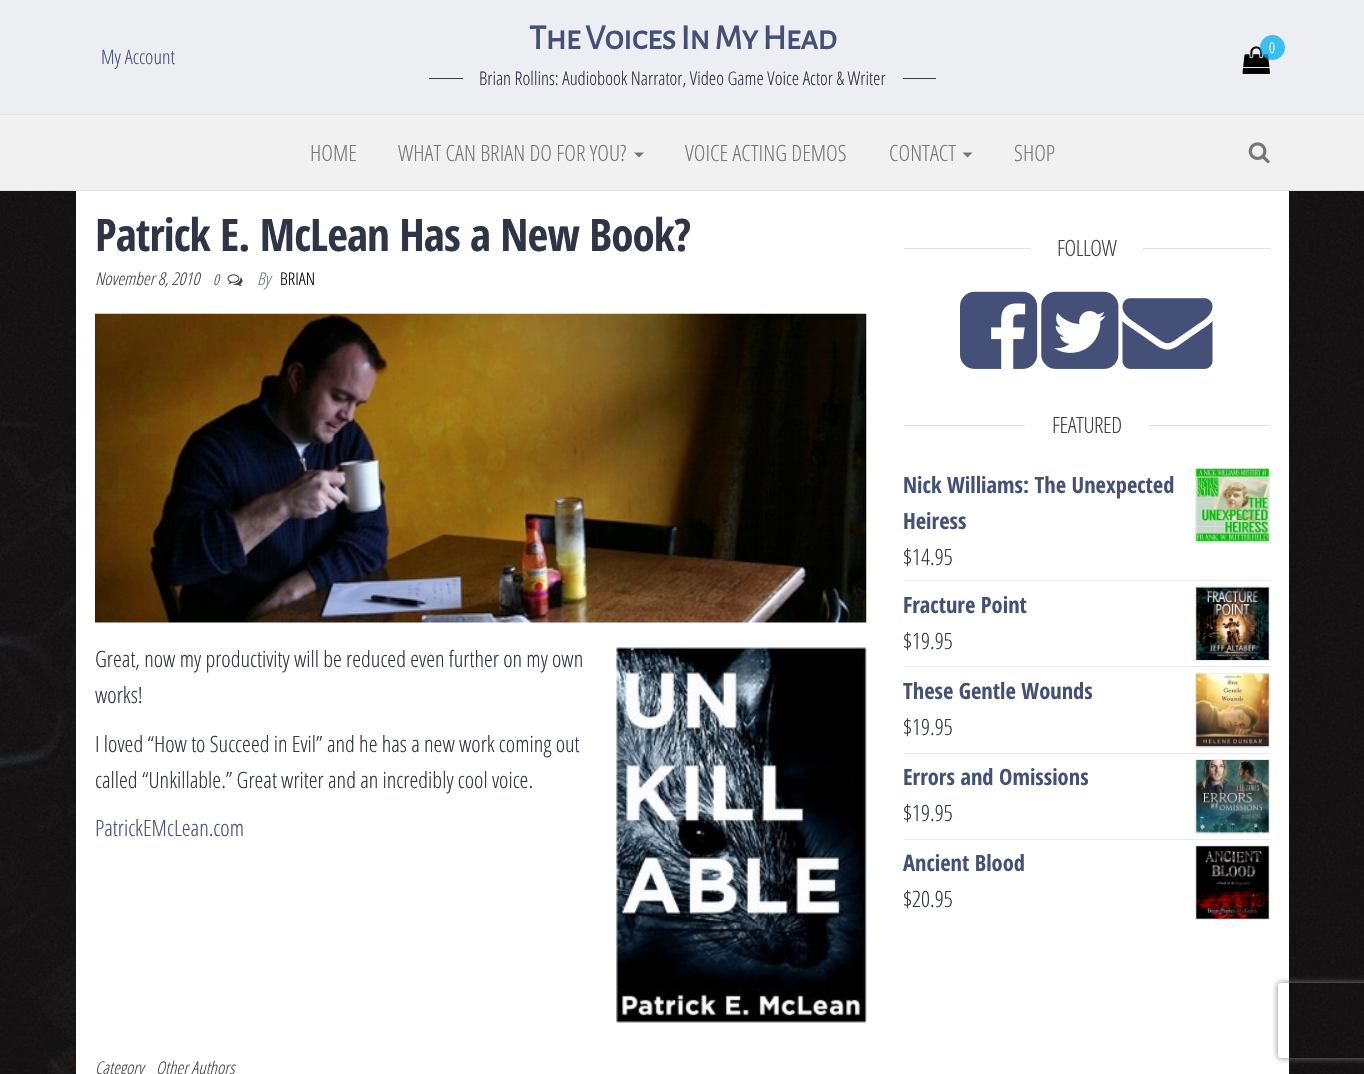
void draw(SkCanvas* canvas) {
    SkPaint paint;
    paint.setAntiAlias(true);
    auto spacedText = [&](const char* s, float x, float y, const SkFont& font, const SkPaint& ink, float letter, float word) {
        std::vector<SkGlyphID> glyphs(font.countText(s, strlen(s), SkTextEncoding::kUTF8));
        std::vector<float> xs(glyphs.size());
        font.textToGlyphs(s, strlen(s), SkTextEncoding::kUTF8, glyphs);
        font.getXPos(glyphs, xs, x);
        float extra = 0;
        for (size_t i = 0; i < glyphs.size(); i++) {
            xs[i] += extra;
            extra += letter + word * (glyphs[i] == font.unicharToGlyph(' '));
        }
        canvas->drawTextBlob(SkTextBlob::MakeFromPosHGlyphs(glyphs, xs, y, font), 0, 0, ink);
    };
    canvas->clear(0xFFFFFFFF);
    canvas->drawImageRect(SkImages::DeferredFromEncodedData(SkData::MakeFromFileName("img1.png")), SkRect::MakeXYWH(0, 191, 1364, 883), SkSamplingOptions());
    paint.setColor(0xFFEDEEF1);
    canvas->drawRect(SkRect::MakeXYWH(0, 0, 1364, 114), paint);
    SkFont font1(fontMgr->matchFamilyStyle("Open Sans Condensed", SkFontStyle(300, SkFontStyle::kNormal_Width, SkFontStyle::kUpright_Slant)), 20);
    font1.setSubpixel(true);
    paint.setColor(0xFF445077);
    canvas->drawString("My Account", 101, 64, font1, paint);
    SkFont font2(fontMgr->matchFamilyStyle("Alegreya Sans SC", SkFontStyle::Bold()), 35);
    font2.setSubpixel(true);
    spacedText("The Voices In My Head", 529, 49, font2, paint, -0.7f, 0);
    paint.setColor(0xFF404040);
    canvas->drawRect(SkRect::MakeXYWH(429, 78, 34, 1), paint);
    SkFont font3(fontMgr->matchFamilyStyle("Open Sans Condensed", SkFontStyle(300, SkFontStyle::kNormal_Width, SkFontStyle::kUpright_Slant)), 18.75f);
    font3.setSubpixel(true);
    paint.setColor(0xFF2F3446);
    canvas->drawString("Brian Rollins: Audiobook Narrator, Video Game Voice Actor & Writer", 479, 85, font3, paint);
    paint.setColor(0xFF404040);
    canvas->drawRect(SkRect::MakeXYWH(903, 78, 33, 1), paint);
    canvas->drawImageRect(SkImages::DeferredFromEncodedData(SkData::MakeFromFileName("img2.png")), SkRect::MakeXYWH(1242, 46, 28, 28), SkSamplingOptions());
    paint.setColor(0xBF00AFF2);
    canvas->drawCircle(1272.5f, 47.5f, 12.5f, paint);
    SkFont font4(fontMgr->matchFamilyStyle("Open Sans Condensed", SkFontStyle(300, SkFontStyle::kNormal_Width, SkFontStyle::kUpright_Slant)), 15);
    font4.setSubpixel(true);
    paint.setColor(0xFFFFFFFF);
    canvas->drawString("0", 1269, 53, font4, paint);
    paint.setColor(0xFFF1F1F1);
    canvas->drawRect(SkRect::MakeXYWH(0, 115, 1364, 75), paint);
    paint.setColor(0xFFE2E2E2);
    canvas->drawRect(SkRect::MakeXYWH(0, 114, 1364, 1), paint);
    canvas->drawRect(SkRect::MakeXYWH(0, 190, 1364, 1), paint);
    SkFont font5(fontMgr->matchFamilyStyle("Open Sans Condensed", SkFontStyle(300, SkFontStyle::kNormal_Width, SkFontStyle::kUpright_Slant)), 22.5f);
    font5.setSubpixel(true);
    paint.setColor(0xFF777777);
    canvas->drawString("HOME", 310, 161, font5, paint);
    canvas->drawString("WHAT CAN BRIAN DO FOR YOU?", 398, 161, font5, paint);
    canvas->drawPath(SkPathBuilder().moveTo(634, 152.5f).lineTo(644, 152.5f).lineTo(639, 157.5f).close().detach(), paint);
    canvas->drawString("VOICE ACTING DEMOS", 685, 161, font5, paint);
    canvas->drawString("CONTACT", 889, 161, font5, paint);
    canvas->drawPath(SkPathBuilder().moveTo(962.5f, 152.5f).lineTo(972.5f, 152.5f).lineTo(967.5f, 157.5f).close().detach(), paint);
    canvas->drawString("SHOP", 1014, 161, font5, paint);
    canvas->drawImageRect(SkImages::DeferredFromEncodedData(SkData::MakeFromFileName("img3.png")), SkRect::MakeXYWH(1248, 142, 22, 22), SkSamplingOptions());
    paint.setColor(0xFFFFFFFF);
    canvas->drawRect(SkRect::MakeXYWH(76, 191, 1213, 883), paint);
    SkFont font6(fontMgr->matchFamilyStyle("Open Sans Condensed", SkFontStyle::Bold()), 45);
    font6.setSubpixel(true);
    paint.setColor(0xFF2F3446);
    spacedText("Patrick E. McLean Has a New Book?", 95, 251, font6, paint, -0.9f, 0);
    SkFont font7(fontMgr->matchFamilyStyle("Open Sans Condensed", SkFontStyle(300, SkFontStyle::kNormal_Width, SkFontStyle::kItalic_Slant)), 17.5f);
    font7.setSubpixel(true);
    paint.setColor(0xFF404040);
    canvas->drawString("November 8, 2010", 95, 285, font7, paint);
    SkFont font8(fontMgr->matchFamilyStyle("Open Sans Condensed", SkFontStyle(300, SkFontStyle::kNormal_Width, SkFontStyle::kItalic_Slant)), 15);
    font8.setSubpixel(true);
    canvas->drawString("0", 213, 285, font8, paint);
    canvas->drawImageRect(SkImages::DeferredFromEncodedData(SkData::MakeFromFileName("img4.png")), SkRect::MakeXYWH(227, 274, 16, 12), SkSamplingOptions());
    paint.setColor(0xFF6D717E);
    canvas->drawString("By", 257, 285, font7, paint);
    SkFont font9(fontMgr->matchFamilyStyle("Open Sans Condensed", SkFontStyle(300, SkFontStyle::kNormal_Width, SkFontStyle::kUpright_Slant)), 17.5f);
    font9.setSubpixel(true);
    paint.setColor(0xFF000000);
    canvas->drawString("BRIAN", 280, 285, font9, paint);
    canvas->drawImageRect(SkImages::DeferredFromEncodedData(SkData::MakeFromFileName("img5.png")), SkRect::MakeXYWH(95, 313, 772, 310), SkSamplingOptions());
    paint.setColor(0xFF2F3446);
    canvas->drawString("Great, now my productivity will be reduced even further on my own", 95, 667, font5, paint);
    canvas->drawImageRect(SkImages::DeferredFromEncodedData(SkData::MakeFromFileName("img6.png")), SkRect::MakeXYWH(616, 647, 251, 376), SkSamplingOptions());
    canvas->drawString("works!", 95, 703, font5, paint);
    canvas->drawString("I loved “How to Succeed in Evil” and he has a new work coming out", 95, 752, font5, paint);
    canvas->drawString("called “Unkillable.” Great writer and an incredibly cool voice.", 95, 788, font5, paint);
    paint.setColor(0xFF445077);
    canvas->drawString("PatrickEMcLean.com", 95, 836, font5, paint);
    paint.setColor(0xFF404040);
    canvas->drawString("Category", 95, 1074, font7, paint);
    canvas->drawString("Other Authors", 156, 1074, font7, paint);
    paint.setColor(0xFFE2E2E2);
    canvas->drawRect(SkRect::MakeXYWH(904, 248, 366, 1), paint);
    paint.setColor(0xFFFFFFFF);
    canvas->drawRect(SkRect::MakeXYWH(1030, 248, 113, 1), paint);
    paint.setColor(0xFF404040);
    spacedText("FOLLOW", 1057, 256, font5, paint, -0.5f, 0);
    canvas->drawImageRect(SkImages::DeferredFromEncodedData(SkData::MakeFromFileName("img7.png")), SkRect::MakeXYWH(960, 291, 78, 78), SkSamplingOptions());
    canvas->drawImageRect(SkImages::DeferredFromEncodedData(SkData::MakeFromFileName("img8.png")), SkRect::MakeXYWH(1041, 291, 78, 78), SkSamplingOptions());
    canvas->drawImageRect(SkImages::DeferredFromEncodedData(SkData::MakeFromFileName("img9.png")), SkRect::MakeXYWH(1122, 298, 91, 71), SkSamplingOptions());
    paint.setColor(0xFFE2E2E2);
    canvas->drawRect(SkRect::MakeXYWH(904, 425, 366, 1), paint);
    paint.setColor(0xFFFFFFFF);
    canvas->drawRect(SkRect::MakeXYWH(1025, 425, 123, 1), paint);
    paint.setColor(0xFF404040);
    spacedText("FEATURED", 1052, 433, font5, paint, -0.5f, 0);
    paint.setColor(0xFFEBEBEB);
    canvas->drawRect(SkRect::MakeXYWH(904, 580, 366, 1), paint);
    SkFont font10(fontMgr->matchFamilyStyle("Open Sans Condensed", SkFontStyle::Bold()), 22.5f);
    font10.setSubpixel(true);
    paint.setColor(0xFF445077);
    canvas->drawString("Nick Williams: The Unexpected", 903, 493, font10, paint);
    paint.setStyle(SkPaint::kStroke_Style);
    paint.setStrokeWidth(1);
    paint.setColor(0xFFEBEBEB);
    canvas->drawRect(SkRect::MakeXYWH(1195.5f, 468.5f, 74, 74), paint);
    canvas->drawImageRect(SkImages::DeferredFromEncodedData(SkData::MakeFromFileName("img10.png")), SkRect::MakeXYWH(1196, 468, 73, 74), SkSamplingOptions());
    paint.setStyle(SkPaint::kFill_Style);
    paint.setColor(0xFF445077);
    canvas->drawString("Heiress", 903, 529, font10, paint);
    paint.setColor(0xFF2F3446);
    canvas->drawString("$14.95", 903, 565, font5, paint);
    paint.setColor(0xFFEBEBEB);
    canvas->drawRect(SkRect::MakeXYWH(904, 666, 366, 1), paint);
    paint.setColor(0xFF445077);
    canvas->drawString("Fracture Point", 903, 613, font10, paint);
    paint.setStyle(SkPaint::kStroke_Style);
    paint.setColor(0xFFEBEBEB);
    canvas->drawRect(SkRect::MakeXYWH(1195.5f, 586.5f, 74, 74), paint);
    canvas->drawImageRect(SkImages::DeferredFromEncodedData(SkData::MakeFromFileName("img11.png")), SkRect::MakeXYWH(1196, 587, 73, 73), SkSamplingOptions());
    paint.setStyle(SkPaint::kFill_Style);
    paint.setColor(0xFF2F3446);
    canvas->drawString("$19.95", 903, 649, font5, paint);
    paint.setColor(0xFFEBEBEB);
    canvas->drawRect(SkRect::MakeXYWH(904, 753, 366, 1), paint);
    paint.setColor(0xFF445077);
    canvas->drawString("These Gentle Wounds", 903, 699, font10, paint);
    paint.setStyle(SkPaint::kStroke_Style);
    paint.setColor(0xFFEBEBEB);
    canvas->drawRect(SkRect::MakeXYWH(1195.5f, 673.5f, 74, 74), paint);
    canvas->drawImageRect(SkImages::DeferredFromEncodedData(SkData::MakeFromFileName("img12.png")), SkRect::MakeXYWH(1196, 673, 73, 74), SkSamplingOptions());
    paint.setStyle(SkPaint::kFill_Style);
    paint.setColor(0xFF2F3446);
    canvas->drawString("$19.95", 903, 735, font5, paint);
    paint.setColor(0xFFEBEBEB);
    canvas->drawRect(SkRect::MakeXYWH(904, 839, 366, 1), paint);
    paint.setColor(0xFF445077);
    canvas->drawString("Errors and Omissions", 903, 785, font10, paint);
    paint.setStyle(SkPaint::kStroke_Style);
    paint.setColor(0xFFEBEBEB);
    canvas->drawRect(SkRect::MakeXYWH(1195.5f, 759.5f, 74, 74), paint);
    canvas->drawImageRect(SkImages::DeferredFromEncodedData(SkData::MakeFromFileName("img13.png")), SkRect::MakeXYWH(1196, 760, 73, 73), SkSamplingOptions());
    paint.setStyle(SkPaint::kFill_Style);
    paint.setColor(0xFF2F3446);
    canvas->drawString("$19.95", 903, 821, font5, paint);
    paint.setColor(0xFF445077);
    canvas->drawString("Ancient Blood", 903, 871, font10, paint);
    paint.setStyle(SkPaint::kStroke_Style);
    paint.setColor(0xFFEBEBEB);
    canvas->drawRect(SkRect::MakeXYWH(1195.5f, 845.5f, 74, 74), paint);
    canvas->drawImageRect(SkImages::DeferredFromEncodedData(SkData::MakeFromFileName("img14.png")), SkRect::MakeXYWH(1196, 846, 73, 73), SkSamplingOptions());
    paint.setStyle(SkPaint::kFill_Style);
    paint.setColor(0xFF2F3446);
    canvas->drawString("$20.95", 903, 907, font5, paint);
    canvas->save();
    canvas->clipPath(SkPathBuilder(SkPathFillType::kEvenOdd).moveTo(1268, 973).lineTo(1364, 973).lineTo(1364, 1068).lineTo(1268, 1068).close().moveTo(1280.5f, 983).lineTo(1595.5f, 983).cubicTo(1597, 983, 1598, 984, 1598, 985.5f).lineTo(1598, 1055.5f).cubicTo(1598, 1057, 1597, 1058, 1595.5f, 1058).lineTo(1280.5f, 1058).cubicTo(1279, 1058, 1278, 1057, 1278, 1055.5f).lineTo(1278, 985.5f).cubicTo(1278, 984, 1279, 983, 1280.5f, 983).close().detach(), true);
    paint.setColor(0xFF808080);
    paint.setMaskFilter(SkMaskFilter::MakeBlur(kNormal_SkBlurStyle, 3));
    canvas->drawRoundRect(SkRect::MakeXYWH(1278, 983, 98, 75), 2.5f, 2.5f, paint);
    paint.setMaskFilter(nullptr);
    canvas->restore();
}
